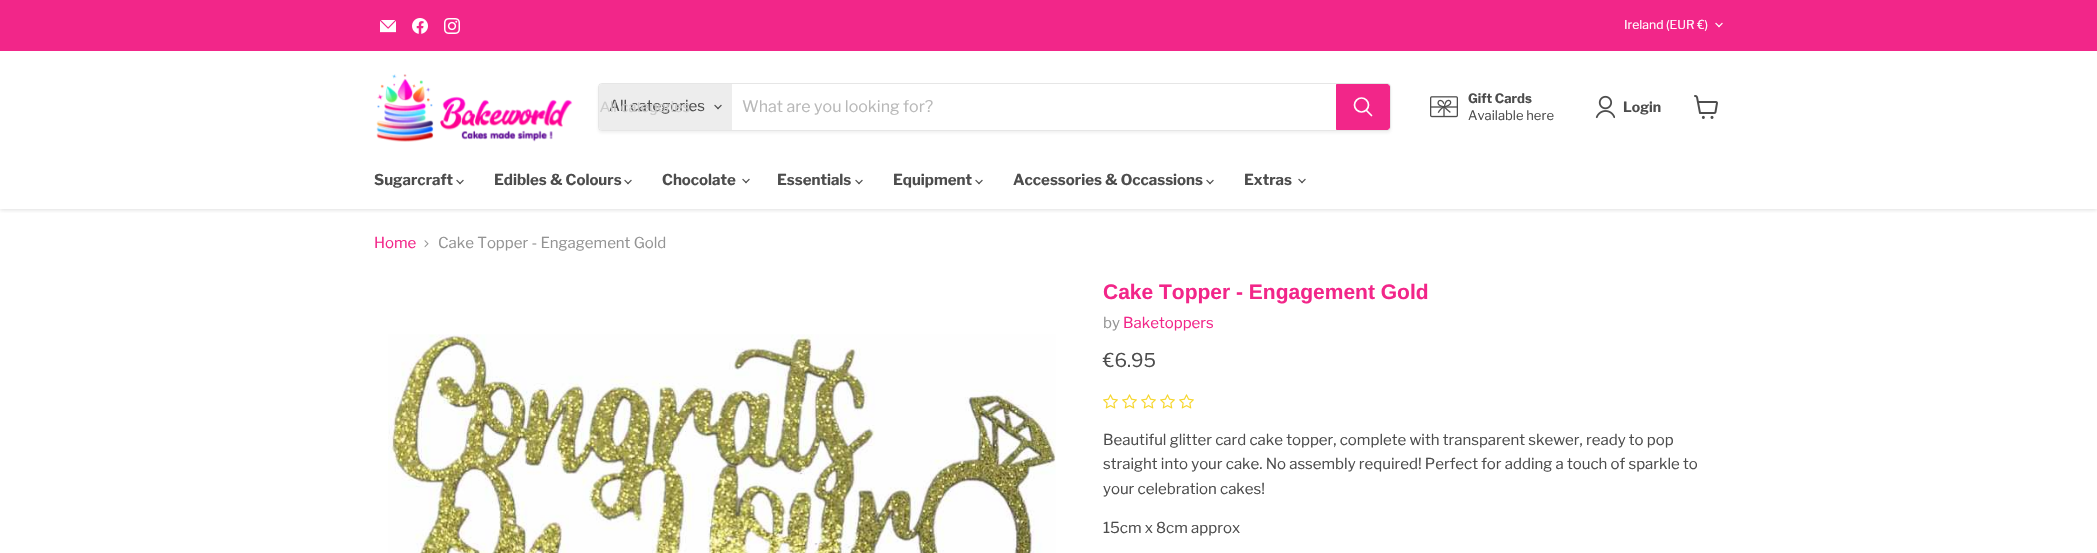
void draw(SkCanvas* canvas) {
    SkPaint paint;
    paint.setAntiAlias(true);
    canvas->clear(0xFFFFFFFF);
    canvas->save();
    canvas->clipRect(SkRect::MakeXYWH(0, 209, 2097, 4));
    paint.setColor(0x40808080);
    paint.setMaskFilter(SkMaskFilter::MakeBlur(kNormal_SkBlurStyle, 2));
    canvas->drawRect(SkRect::MakeXYWH(0, 53, 2097, 157), paint);
    paint.setMaskFilter(nullptr);
    canvas->restore();
    paint.setColor(0xFFF22689);
    canvas->drawRect(SkRect::MakeXYWH(0, 0, 2097, 51), paint);
    paint.setColor(0xFFFFFFFF);
    canvas->drawRect(SkRect::MakeXYWH(0, 51, 2097, 1), paint);
    canvas->drawImageRect(SkImages::DeferredFromEncodedData(SkData::MakeFromFileName("img1.png")), SkRect::MakeXYWH(380, 20, 16, 13), SkSamplingOptions());
    canvas->drawImageRect(SkImages::DeferredFromEncodedData(SkData::MakeFromFileName("img2.png")), SkRect::MakeXYWH(412, 18, 16, 16), SkSamplingOptions());
    canvas->drawImageRect(SkImages::DeferredFromEncodedData(SkData::MakeFromFileName("img3.png")), SkRect::MakeXYWH(444, 18, 16, 16), SkSamplingOptions());
    SkFont font1(fontMgr->matchFamilyStyle("Libre Franklin", SkFontStyle::Normal()), 12.25f);
    font1.setSubpixel(true);
    canvas->drawString("Ireland (EUR €)", 1624, 29, font1, paint);
    canvas->drawImageRect(SkImages::DeferredFromEncodedData(SkData::MakeFromFileName("img4.png")), SkRect::MakeXYWH(1715, 22, 8, 6), SkSamplingOptions());
    canvas->drawImageRect(SkImages::DeferredFromEncodedData(SkData::MakeFromFileName("img5.png")), SkRect::MakeXYWH(376, 74, 197, 68), SkSamplingOptions());
    canvas->save();
    canvas->clipPath(SkPathBuilder(SkPathFillType::kEvenOdd).moveTo(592, 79).lineTo(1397, 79).lineTo(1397, 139).lineTo(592, 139).close().moveTo(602, 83).lineTo(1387, 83).cubicTo(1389, 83, 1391, 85, 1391, 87).lineTo(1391, 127).cubicTo(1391, 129, 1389, 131, 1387, 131).lineTo(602, 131).cubicTo(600, 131, 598, 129, 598, 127).lineTo(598, 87).cubicTo(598, 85, 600, 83, 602, 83).close().detach(), true);
    paint.setColor(0x1C808080);
    paint.setMaskFilter(SkMaskFilter::MakeBlur(kNormal_SkBlurStyle, 1.5f));
    canvas->drawRoundRect(SkRect::MakeXYWH(598, 85, 793, 48), 4, 4, paint);
    paint.setMaskFilter(nullptr);
    canvas->restore();
    paint.setStyle(SkPaint::kStroke_Style);
    paint.setStrokeWidth(1);
    paint.setColor(0x33808080);
    canvas->drawRoundRect(SkRect::MakeXYWH(598.5f, 83.5f, 792, 47), 3.5f, 3.5f, paint);
    paint.setStyle(SkPaint::kFill_Style);
    paint.setColor(0xFFEDEDED);
    canvas->drawPath(SkPathBuilder().moveTo(602, 84).lineTo(732, 84).lineTo(732, 130).lineTo(602, 130).cubicTo(600.5f, 130, 599, 128.5f, 599, 127).lineTo(599, 87).cubicTo(599, 85.5f, 600.5f, 84, 602, 84).close().detach(), paint);
    SkFont font2(fontMgr->matchFamilyStyle("Libre Franklin", SkFontStyle::Normal()), 15);
    font2.setSubpixel(true);
    paint.setColor(0xFF4D4D4D);
    canvas->drawString("All categories", 609, 111, font2, paint);
    SkFont font3(fontMgr->matchFamilyStyle("Liberation Sans", SkFontStyle::Normal()), 15);
    font3.setSubpixel(true);
    paint.setColor(0xFFCCCCCC);
    canvas->drawString("All categories", 600, 112, font3, paint);
    canvas->drawImageRect(SkImages::DeferredFromEncodedData(SkData::MakeFromFileName("img6.png")), SkRect::MakeXYWH(714, 104, 8, 6), SkSamplingOptions());
    SkFont font4(fontMgr->matchFamilyStyle("Libre Franklin", SkFontStyle::Normal()), 16);
    font4.setSubpixel(true);
    paint.setColor(0xFFB8B8B8);
    canvas->drawString("What are you looking for?", 742, 112, font4, paint);
    paint.setColor(0xFFF22689);
    canvas->drawPath(SkPathBuilder().moveTo(1336.5f, 84.5f).lineTo(1387, 84.5f).cubicTo(1388.5f, 84.5f, 1389.5f, 85.5f, 1389.5f, 87).lineTo(1389.5f, 127).cubicTo(1389.5f, 128.5f, 1388.5f, 129.5f, 1387, 129.5f).lineTo(1336.5f, 129.5f).close().detach(), paint);
    paint.setStyle(SkPaint::kStroke_Style);
    canvas->drawPath(SkPathBuilder().moveTo(1336.5f, 84.5f).lineTo(1387, 84.5f).cubicTo(1388.5f, 84.5f, 1389.5f, 85.5f, 1389.5f, 87).lineTo(1389.5f, 127).cubicTo(1389.5f, 128.5f, 1388.5f, 129.5f, 1387, 129.5f).lineTo(1336.5f, 129.5f).close().detach(), paint);
    paint.setStrokeWidth(1.7f);
    paint.setStrokeCap(SkPaint::kRound_Cap);
    paint.setColor(0xFFFFFFFF);
    canvas->drawPath(SkPathBuilder().moveTo(1371.5f, 115.5f).lineTo(1366.5f, 110.5f).detach(), paint);
    paint.setStrokeCap(SkPaint::kButt_Cap);
    canvas->drawCircle(1361.5f, 105, 7, paint);
    canvas->drawImageRect(SkImages::DeferredFromEncodedData(SkData::MakeFromFileName("img7.png")), SkRect::MakeXYWH(1430, 96, 28, 22), SkSamplingOptions());
    SkFont font5(fontMgr->matchFamilyStyle("Libre Franklin", SkFontStyle::Bold()), 13);
    font5.setSubpixel(true);
    paint.setStyle(SkPaint::kFill_Style);
    paint.setColor(0xFF4D4D4D);
    canvas->drawString("Gift Cards", 1468, 103, font5, paint);
    SkFont font6(fontMgr->matchFamilyStyle("Libre Franklin", SkFontStyle::Normal()), 13);
    font6.setSubpixel(true);
    canvas->drawString("Available here", 1468, 120, font6, paint);
    canvas->drawImageRect(SkImages::DeferredFromEncodedData(SkData::MakeFromFileName("img8.png")), SkRect::MakeXYWH(1595, 95, 20, 24), SkSamplingOptions());
    SkFont font7(fontMgr->matchFamilyStyle("Libre Franklin", SkFontStyle::Bold()), 14);
    font7.setSubpixel(true);
    canvas->drawString("Login", 1623, 112, font7, paint);
    canvas->drawImageRect(SkImages::DeferredFromEncodedData(SkData::MakeFromFileName("img9.png")), SkRect::MakeXYWH(1694, 95, 24, 24), SkSamplingOptions());
    SkFont font8(fontMgr->matchFamilyStyle("Libre Franklin", SkFontStyle::Bold()), 15);
    font8.setSubpixel(true);
    canvas->drawString("Sugarcraft", 374, 185, font8, paint);
    canvas->drawImageRect(SkImages::DeferredFromEncodedData(SkData::MakeFromFileName("img10.png")), SkRect::MakeXYWH(456, 179, 8, 6), SkSamplingOptions());
    canvas->drawString("Edibles & Colours", 494, 185, font8, paint);
    canvas->drawImageRect(SkImages::DeferredFromEncodedData(SkData::MakeFromFileName("img10.png")), SkRect::MakeXYWH(624, 179, 8, 6), SkSamplingOptions());
    canvas->drawString("Chocolate", 662, 185, font8, paint);
    canvas->drawImageRect(SkImages::DeferredFromEncodedData(SkData::MakeFromFileName("img10.png")), SkRect::MakeXYWH(742, 178, 8, 6), SkSamplingOptions());
    canvas->drawString("Essentials", 777, 185, font8, paint);
    canvas->drawImageRect(SkImages::DeferredFromEncodedData(SkData::MakeFromFileName("img10.png")), SkRect::MakeXYWH(855, 179, 8, 6), SkSamplingOptions());
    canvas->drawString("Equipment", 893, 185, font8, paint);
    canvas->drawImageRect(SkImages::DeferredFromEncodedData(SkData::MakeFromFileName("img10.png")), SkRect::MakeXYWH(975, 179, 8, 6), SkSamplingOptions());
    canvas->drawString("Accessories & Occassions", 1013, 185, font8, paint);
    canvas->drawImageRect(SkImages::DeferredFromEncodedData(SkData::MakeFromFileName("img10.png")), SkRect::MakeXYWH(1206, 179, 8, 6), SkSamplingOptions());
    canvas->drawString("Extras", 1244, 185, font8, paint);
    canvas->drawImageRect(SkImages::DeferredFromEncodedData(SkData::MakeFromFileName("img10.png")), SkRect::MakeXYWH(1298, 178, 8, 6), SkSamplingOptions());
    paint.setColor(0xFFF22689);
    canvas->drawString("Home", 374, 248, font2, paint);
    canvas->drawImageRect(SkImages::DeferredFromEncodedData(SkData::MakeFromFileName("img11.png")), SkRect::MakeXYWH(424, 240, 5, 8), SkSamplingOptions());
    paint.setColor(0xFF949494);
    canvas->drawString("Cake Topper - Engagement Gold", 438, 248, font2, paint);
    canvas->drawImageRect(SkImages::DeferredFromEncodedData(SkData::MakeFromFileName("img12.png")), SkRect::MakeXYWH(388, 334, 668, 219), SkSamplingOptions());
    SkFont font9(fontMgr->matchFamilyStyle("Arimo", SkFontStyle::Bold()), 21);
    font9.setSubpixel(true);
    paint.setColor(0xFFF22689);
    canvas->drawString("Cake Topper - Engagement Gold", 1103, 299, font9, paint);
    paint.setColor(0xFF949494);
    canvas->drawString("by", 1103, 328, font2, paint);
    paint.setColor(0xFFF22689);
    canvas->drawString("Baketoppers", 1123, 328, font2, paint);
    SkFont font10(fontMgr->matchFamilyStyle("Libre Franklin", SkFontStyle::Normal()), 19);
    font10.setSubpixel(true);
    paint.setColor(0xFF4D4D4D);
    canvas->drawString("€6.95", 1103, 367, font10, paint);
    canvas->drawImageRect(SkImages::DeferredFromEncodedData(SkData::MakeFromFileName("img13.png")), SkRect::MakeXYWH(1103, 394, 15, 15), SkSamplingOptions());
    canvas->drawImageRect(SkImages::DeferredFromEncodedData(SkData::MakeFromFileName("img13.png")), SkRect::MakeXYWH(1122, 394, 15, 15), SkSamplingOptions());
    canvas->drawImageRect(SkImages::DeferredFromEncodedData(SkData::MakeFromFileName("img13.png")), SkRect::MakeXYWH(1141, 394, 15, 15), SkSamplingOptions());
    canvas->drawImageRect(SkImages::DeferredFromEncodedData(SkData::MakeFromFileName("img13.png")), SkRect::MakeXYWH(1160, 394, 15, 15), SkSamplingOptions());
    canvas->drawImageRect(SkImages::DeferredFromEncodedData(SkData::MakeFromFileName("img13.png")), SkRect::MakeXYWH(1179, 394, 15, 15), SkSamplingOptions());
    canvas->drawString("Beautiful glitter card cake topper, complete with transparent skewer, ready to pop", 1103, 445, font2, paint);
    canvas->drawString("straight into your cake. No assembly required! Perfect for adding a touch of sparkle to", 1103, 469, font2, paint);
    canvas->drawString("your celebration cakes!", 1103, 494, font2, paint);
    canvas->drawString("15cm x 8cm approx", 1103, 533, font2, paint);
}
